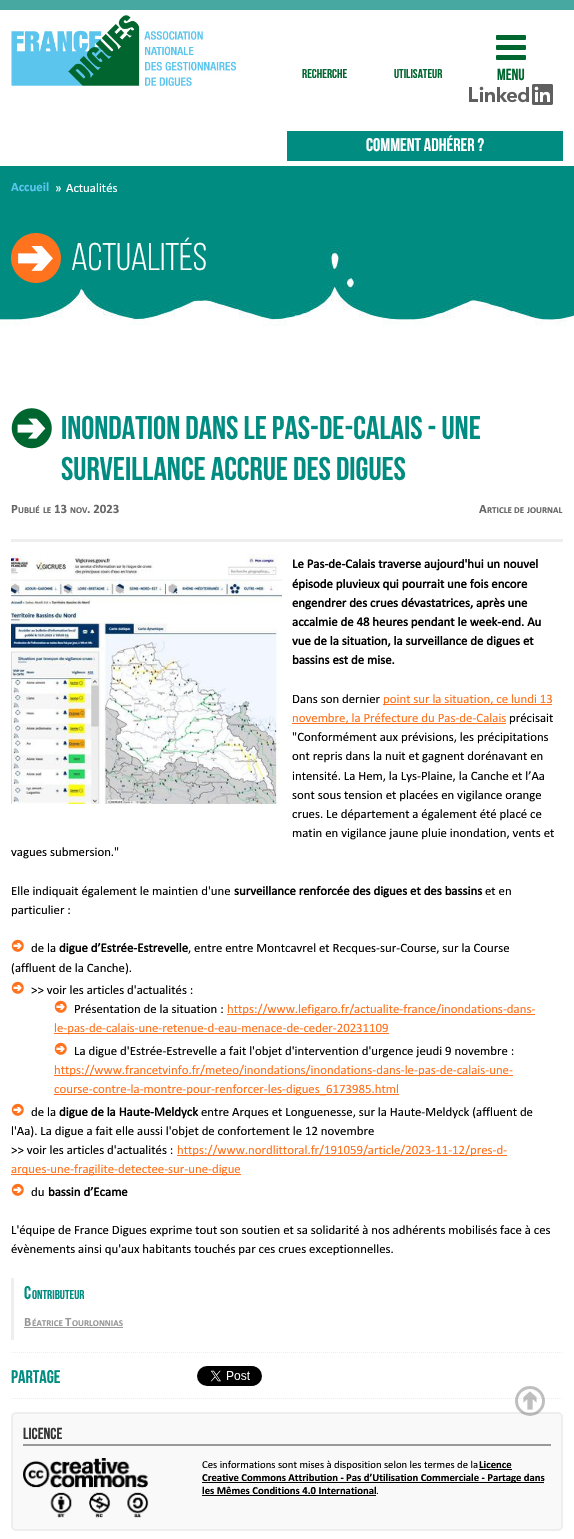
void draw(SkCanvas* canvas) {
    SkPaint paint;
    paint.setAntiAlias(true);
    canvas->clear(0xFF46A8A1);
    paint.setColor(0xFFFFFFFF);
    canvas->drawRect(SkRect::MakeXYWH(0, 10, 574, 156), paint);
    canvas->drawImageRect(SkImages::DeferredFromEncodedData(SkData::MakeFromFileName("img1.png")), SkRect::MakeXYWH(11, 15, 225, 71), SkSamplingOptions());
    SkFont font1(fontMgr->matchFamilyStyle("Bebas Neue", SkFontStyle::Bold()), 12.8f);
    font1.setSubpixel(true);
    paint.setColor(0xFF00662F);
    canvas->drawString("recherche", 302, 78, font1, paint);
    canvas->drawString("utilisateur", 394, 78, font1, paint);
    canvas->drawRoundRect(SkRect::MakeXYWH(496, 35, 30, 5), 1, 1, paint);
    canvas->drawRoundRect(SkRect::MakeXYWH(496, 45, 30, 5), 1, 1, paint);
    canvas->drawRoundRect(SkRect::MakeXYWH(496, 55, 30, 5), 1, 1, paint);
    SkFont font2(fontMgr->matchFamilyStyle("Bebas Neue", SkFontStyle::Bold()), 16);
    font2.setSubpixel(true);
    canvas->drawString("Menu", 497, 80, font2, paint);
    canvas->drawImageRect(SkImages::DeferredFromEncodedData(SkData::MakeFromFileName("img2.png")), SkRect::MakeXYWH(469, 84, 84, 21), SkSamplingOptions());
    paint.setColor(0xFF008C81);
    canvas->drawRect(SkRect::MakeXYWH(287, 131, 276, 30), paint);
    SkFont font3(fontMgr->matchFamilyStyle("Bebas Neue", SkFontStyle::Bold()), 18.25f);
    font3.setSubpixel(true);
    paint.setColor(0xFFFFFFFF);
    canvas->drawString("COMMENT ADHÉRER ?", 366, 151, font3, paint);
    canvas->drawRect(SkRect::MakeXYWH(0, 326, 574, 1213), paint);
    canvas->drawImageRect(SkImages::DeferredFromEncodedData(SkData::MakeFromFileName("img3.png")), SkRect::MakeXYWH(0, 166, 574, 160), SkSamplingOptions());
    SkFont font4(fontMgr->matchFamilyStyle("Calibri", SkFontStyle::Bold()), 12.8f);
    font4.setSubpixel(true);
    paint.setColor(0xFF5CC5ED);
    canvas->drawString("Accueil", 11, 191, font4, paint);
    SkFont font5(fontMgr->matchFamilyStyle("Calibri", SkFontStyle::Normal()), 12.8f);
    font5.setSubpixel(true);
    paint.setColor(0xFFFFFFFF);
    canvas->drawString("»", 55, 192, font5, paint);
    canvas->drawString("Actualités", 66, 192, font5, paint);
    canvas->drawImageRect(SkImages::DeferredFromEncodedData(SkData::MakeFromFileName("img4.png")), SkRect::MakeXYWH(11, 233, 50, 50), SkSamplingOptions());
    SkFont font6(fontMgr->matchFamilyStyle("Bebas Neue", SkFontStyle::Normal()), 38.5f);
    font6.setSubpixel(true);
    canvas->drawString("Actualités", 71, 270, font6, paint);
    canvas->drawImageRect(SkImages::DeferredFromEncodedData(SkData::MakeFromFileName("img5.png")), SkRect::MakeXYWH(11, 408, 41, 41), SkSamplingOptions());
    SkFont font7(fontMgr->matchFamilyStyle("Bebas Neue", SkFontStyle::Bold()), 32.9f);
    font7.setSubpixel(true);
    paint.setColor(0xFF008C81);
    canvas->drawString("Inondation dans le Pas-de-Calais - une", 61, 439, font7, paint);
    canvas->drawString("surveillance accrue des digues", 61, 480, font7, paint);
    paint.setColor(0xFF666666);
    canvas->drawString("P", 11, 513, font4, paint);
    SkFont font8(fontMgr->matchFamilyStyle("Calibri", SkFontStyle::Bold()), 9);
    font8.setSubpixel(true);
    canvas->drawString("UBLIÉ", 18, 513, font8, paint);
    canvas->drawString("LE", 43, 513, font8, paint);
    canvas->drawString("13", 54, 513, font4, paint);
    canvas->drawString("NOV", 70, 513, font8, paint);
    canvas->drawString(". 2023", 87, 513, font4, paint);
    canvas->drawString("A", 479, 513, font4, paint);
    canvas->drawString("RTICLE", 487, 513, font8, paint);
    canvas->drawString("DE", 514, 513, font8, paint);
    canvas->drawString("JOURNAL", 527, 513, font8, paint);
    paint.setColor(0xFFEEEEEE);
    canvas->drawRect(SkRect::MakeXYWH(11, 539, 552, 3), paint);
    canvas->drawImageRect(SkImages::DeferredFromEncodedData(SkData::MakeFromFileName("img6.png")), SkRect::MakeXYWH(11, 554, 271, 250), SkSamplingOptions());
    SkFont font9(fontMgr->matchFamilyStyle("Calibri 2", SkFontStyle::Bold()), 12.8f);
    font9.setSubpixel(true);
    paint.setColor(0xFF000000);
    canvas->drawString("Le Pas-de-Calais traverse aujourd'hui un nouvel", 292, 568, font9, paint);
    canvas->drawString("épisode pluvieux qui pourrait une fois encore", 292, 588, font9, paint);
    canvas->drawString("engendrer des crues dévastatrices, après une", 292, 607, font9, paint);
    canvas->drawString("accalmie de 48 heures pendant le week-end. Au", 292, 626, font9, paint);
    canvas->drawString("vue de la situation, la surveillance de digues et", 292, 645, font9, paint);
    canvas->drawString("bassins est de mise.", 292, 664, font9, paint);
    canvas->drawString("Dans son dernier", 292, 703, font5, paint);
    paint.setColor(0xFFFF721E);
    canvas->drawRect(SkRect::MakeXYWH(383, 704, 169, 1), paint);
    canvas->drawString("point sur la situation, ce lundi 13", 383, 703, font5, paint);
    canvas->drawRect(SkRect::MakeXYWH(292, 723, 214, 1), paint);
    canvas->drawString("novembre, la Préfecture du Pas-de-Calais", 292, 722, font5, paint);
    paint.setColor(0xFF000000);
    canvas->drawString("précisait", 509, 722, font5, paint);
    canvas->drawString("\"Conformément aux prévisions, les précipitations", 292, 741, font5, paint);
    canvas->drawString("ont repris dans la nuit et gagnent dorénavant en", 292, 760, font5, paint);
    canvas->drawString("intensité. La Hem, la Lys-Plaine, la Canche et l’Aa", 292, 780, font5, paint);
    canvas->drawString("sont sous tension et placées en vigilance orange", 292, 799, font5, paint);
    canvas->drawString("crues. Le département a également été placé ce", 292, 818, font5, paint);
    canvas->drawString("matin en vigilance jaune pluie inondation, vents et", 292, 837, font5, paint);
    canvas->drawString("vagues submersion.\"", 11, 856, font5, paint);
    canvas->drawString("Elle indiquait également le maintien d'une", 11, 895, font5, paint);
    canvas->drawString("surveillance renforcée des digues et des bassins", 234, 895, font9, paint);
    canvas->drawString("et en", 485, 895, font5, paint);
    canvas->drawString("particulier :", 11, 914, font5, paint);
    canvas->drawImageRect(SkImages::DeferredFromEncodedData(SkData::MakeFromFileName("img7.png")), SkRect::MakeXYWH(11, 939, 13, 13), SkSamplingOptions());
    canvas->drawString("de la", 31, 952, font5, paint);
    canvas->drawString("digue d’Estrée-Estrevelle", 59, 952, font9, paint);
    canvas->drawString(", entre entre Montcavrel et Recques-sur-Course, sur la Course", 188, 952, font5, paint);
    canvas->drawString("(affluent de la Canche).", 11, 972, font5, paint);
    canvas->drawImageRect(SkImages::DeferredFromEncodedData(SkData::MakeFromFileName("img7.png")), SkRect::MakeXYWH(11, 981, 13, 13), SkSamplingOptions());
    canvas->drawString(">> voir les articles d'actualités :", 31, 994, font5, paint);
    canvas->drawImageRect(SkImages::DeferredFromEncodedData(SkData::MakeFromFileName("img7.png")), SkRect::MakeXYWH(54, 1000, 13, 13), SkSamplingOptions());
    canvas->drawString("Présentation de la situation :", 74, 1013, font5, paint);
    paint.setColor(0xFFFF721E);
    canvas->drawRect(SkRect::MakeXYWH(227, 1014, 308, 1), paint);
    canvas->drawString("https://www.lefigaro.fr/actualite-france/inondations-dans-", 227, 1013, font5, paint);
    canvas->drawRect(SkRect::MakeXYWH(54, 1033, 335, 1), paint);
    canvas->drawString("le-pas-de-calais-une-retenue-d-eau-menace-de-ceder-20231109", 54, 1032, font5, paint);
    canvas->drawImageRect(SkImages::DeferredFromEncodedData(SkData::MakeFromFileName("img7.png")), SkRect::MakeXYWH(54, 1042, 13, 13), SkSamplingOptions());
    paint.setColor(0xFF000000);
    canvas->drawString("La digue d'Estrée-Estrevelle a fait l'objet d'intervention d'urgence jeudi 9 novembre :", 74, 1055, font5, paint);
    paint.setColor(0xFFFF721E);
    canvas->drawRect(SkRect::MakeXYWH(54, 1075, 459, 1), paint);
    canvas->drawString("https://www.francetvinfo.fr/meteo/inondations/inondations-dans-le-pas-de-calais-une-", 54, 1074, font5, paint);
    canvas->drawRect(SkRect::MakeXYWH(54, 1094, 345, 1), paint);
    canvas->drawString("course-contre-la-montre-pour-renforcer-les-digues_6173985.html", 54, 1093, font5, paint);
    canvas->drawImageRect(SkImages::DeferredFromEncodedData(SkData::MakeFromFileName("img7.png")), SkRect::MakeXYWH(11, 1103, 13, 13), SkSamplingOptions());
    paint.setColor(0xFF000000);
    canvas->drawString("de la", 31, 1116, font5, paint);
    canvas->drawString("digue de la Haute-Meldyck", 59, 1116, font9, paint);
    canvas->drawString("entre Arques et Longuenesse, sur la Haute-Meldyck (affluent de", 201, 1116, font5, paint);
    canvas->drawString("l'Aa). La digue a fait elle aussi l'objet de confortement le 12 novembre", 11, 1135, font5, paint);
    canvas->drawString(">> voir les articles d'actualités :", 11, 1154, font5, paint);
    paint.setColor(0xFFFF721E);
    canvas->drawRect(SkRect::MakeXYWH(177, 1155, 330, 1), paint);
    canvas->drawString("https://www.nordlittoral.fr/191059/article/2023-11-12/pres-d-", 177, 1154, font5, paint);
    canvas->drawRect(SkRect::MakeXYWH(11, 1174, 230, 1), paint);
    canvas->drawString("arques-une-fragilite-detectee-sur-une-digue", 11, 1173, font5, paint);
    canvas->drawImageRect(SkImages::DeferredFromEncodedData(SkData::MakeFromFileName("img7.png")), SkRect::MakeXYWH(11, 1183, 13, 13), SkSamplingOptions());
    paint.setColor(0xFF000000);
    canvas->drawString("du", 31, 1196, font5, paint);
    canvas->drawString("bassin d’Ecame", 48, 1196, font9, paint);
    canvas->drawString("L'équipe de France Digues exprime tout son soutien et sa solidarité à nos adhérents mobilisés face à ces", 11, 1234, font5, paint);
    canvas->drawString("évènements ainsi qu'aux habitants touchés par ces crues exceptionnelles.", 11, 1253, font5, paint);
    paint.setColor(0xFFEEEEEE);
    canvas->drawRect(SkRect::MakeXYWH(11, 1278, 3, 62), paint);
    paint.setColor(0xFF008C81);
    canvas->drawString("C", 24, 1299, font3, paint);
    canvas->drawString("ONTRIBUTEUR", 32, 1299, font1, paint);
    paint.setColor(0xFF999999);
    canvas->drawString("B", 24, 1326, font4, paint);
    canvas->drawString("ÉATRICE", 32, 1326, font8, paint);
    canvas->drawString("T", 65, 1326, font4, paint);
    canvas->drawString("OURLONNIAS", 72, 1326, font8, paint);
    canvas->drawRect(SkRect::MakeXYWH(24, 1327, 99, 1), paint);
    paint.setStyle(SkPaint::kStroke_Style);
    paint.setStrokeWidth(1);
    paint.setColor(0xFFEEEEEE);
    paint.setPathEffect(SkDashPathEffect::Make({{1, 1}}, 0));
    canvas->drawPath(SkPathBuilder().moveTo(11, 1352.5f).lineTo(563, 1352.5f).detach(), paint);
    paint.setPathEffect(nullptr);
    paint.setPathEffect(SkDashPathEffect::Make({{1, 1}}, 0));
    canvas->drawPath(SkPathBuilder().moveTo(11, 1398.5f).lineTo(563, 1398.5f).detach(), paint);
    paint.setPathEffect(nullptr);
    paint.setStyle(SkPaint::kFill_Style);
    paint.setColor(0xFF008C81);
    canvas->drawString("Partage", 11, 1383, font3, paint);
    canvas->drawImageRect(SkImages::DeferredFromEncodedData(SkData::MakeFromFileName("img8.png")), SkRect::MakeXYWH(197, 1366, 65, 20), SkSamplingOptions());
    paint.setColor(0xFFF9F9F9);
    canvas->drawRoundRect(SkRect::MakeXYWH(12, 1413, 550, 117), 4, 4, paint);
    paint.setStyle(SkPaint::kStroke_Style);
    paint.setStrokeWidth(2);
    paint.setColor(0xFFEEEEEE);
    canvas->drawRoundRect(SkRect::MakeXYWH(12, 1413, 550, 117), 4, 4, paint);
    paint.setStyle(SkPaint::kFill_Style);
    paint.setColor(0xFF999999);
    canvas->drawRect(SkRect::MakeXYWH(23, 1444, 528, 2), paint);
    paint.setColor(0xFF333333);
    canvas->drawString("Licence", 23, 1439, font2, paint);
    canvas->drawImageRect(SkImages::DeferredFromEncodedData(SkData::MakeFromFileName("img9.png")), SkRect::MakeXYWH(23, 1458, 126, 60), SkSamplingOptions());
    SkFont font10(fontMgr->matchFamilyStyle("Calibri", SkFontStyle::Normal()), 10.7f);
    font10.setSubpixel(true);
    paint.setColor(0xFF000000);
    canvas->drawString("Ces informations sont mises à disposition selon les termes de la", 202, 1468, font10, paint);
    SkFont font11(fontMgr->matchFamilyStyle("Calibri", SkFontStyle::Bold()), 10.7f);
    font11.setSubpixel(true);
    canvas->drawString("Licence", 479, 1468, font11, paint);
    canvas->drawRect(SkRect::MakeXYWH(479, 1469, 33, 1), paint);
    canvas->drawRect(SkRect::MakeXYWH(202, 1482, 342, 1), paint);
    canvas->drawString("Creative Commons Attribution - Pas d’Utilisation Commerciale - Partage dans", 202, 1481, font11, paint);
    canvas->drawString("les Mêmes Conditions 4.0 International", 202, 1494, font11, paint);
    canvas->drawRect(SkRect::MakeXYWH(202, 1495, 174, 1), paint);
    canvas->drawString(".", 376, 1494, font10, paint);
    canvas->drawImageRect(SkImages::DeferredFromEncodedData(SkData::MakeFromFileName("img10.png")), SkRect::MakeXYWH(523, 1391, 14, 19), SkSamplingOptions());
    paint.setStyle(SkPaint::kStroke_Style);
    paint.setStrokeWidth(3);
    paint.setColor(0x40000000);
    canvas->drawCircle(530, 1401, 13.5f, paint);
}
